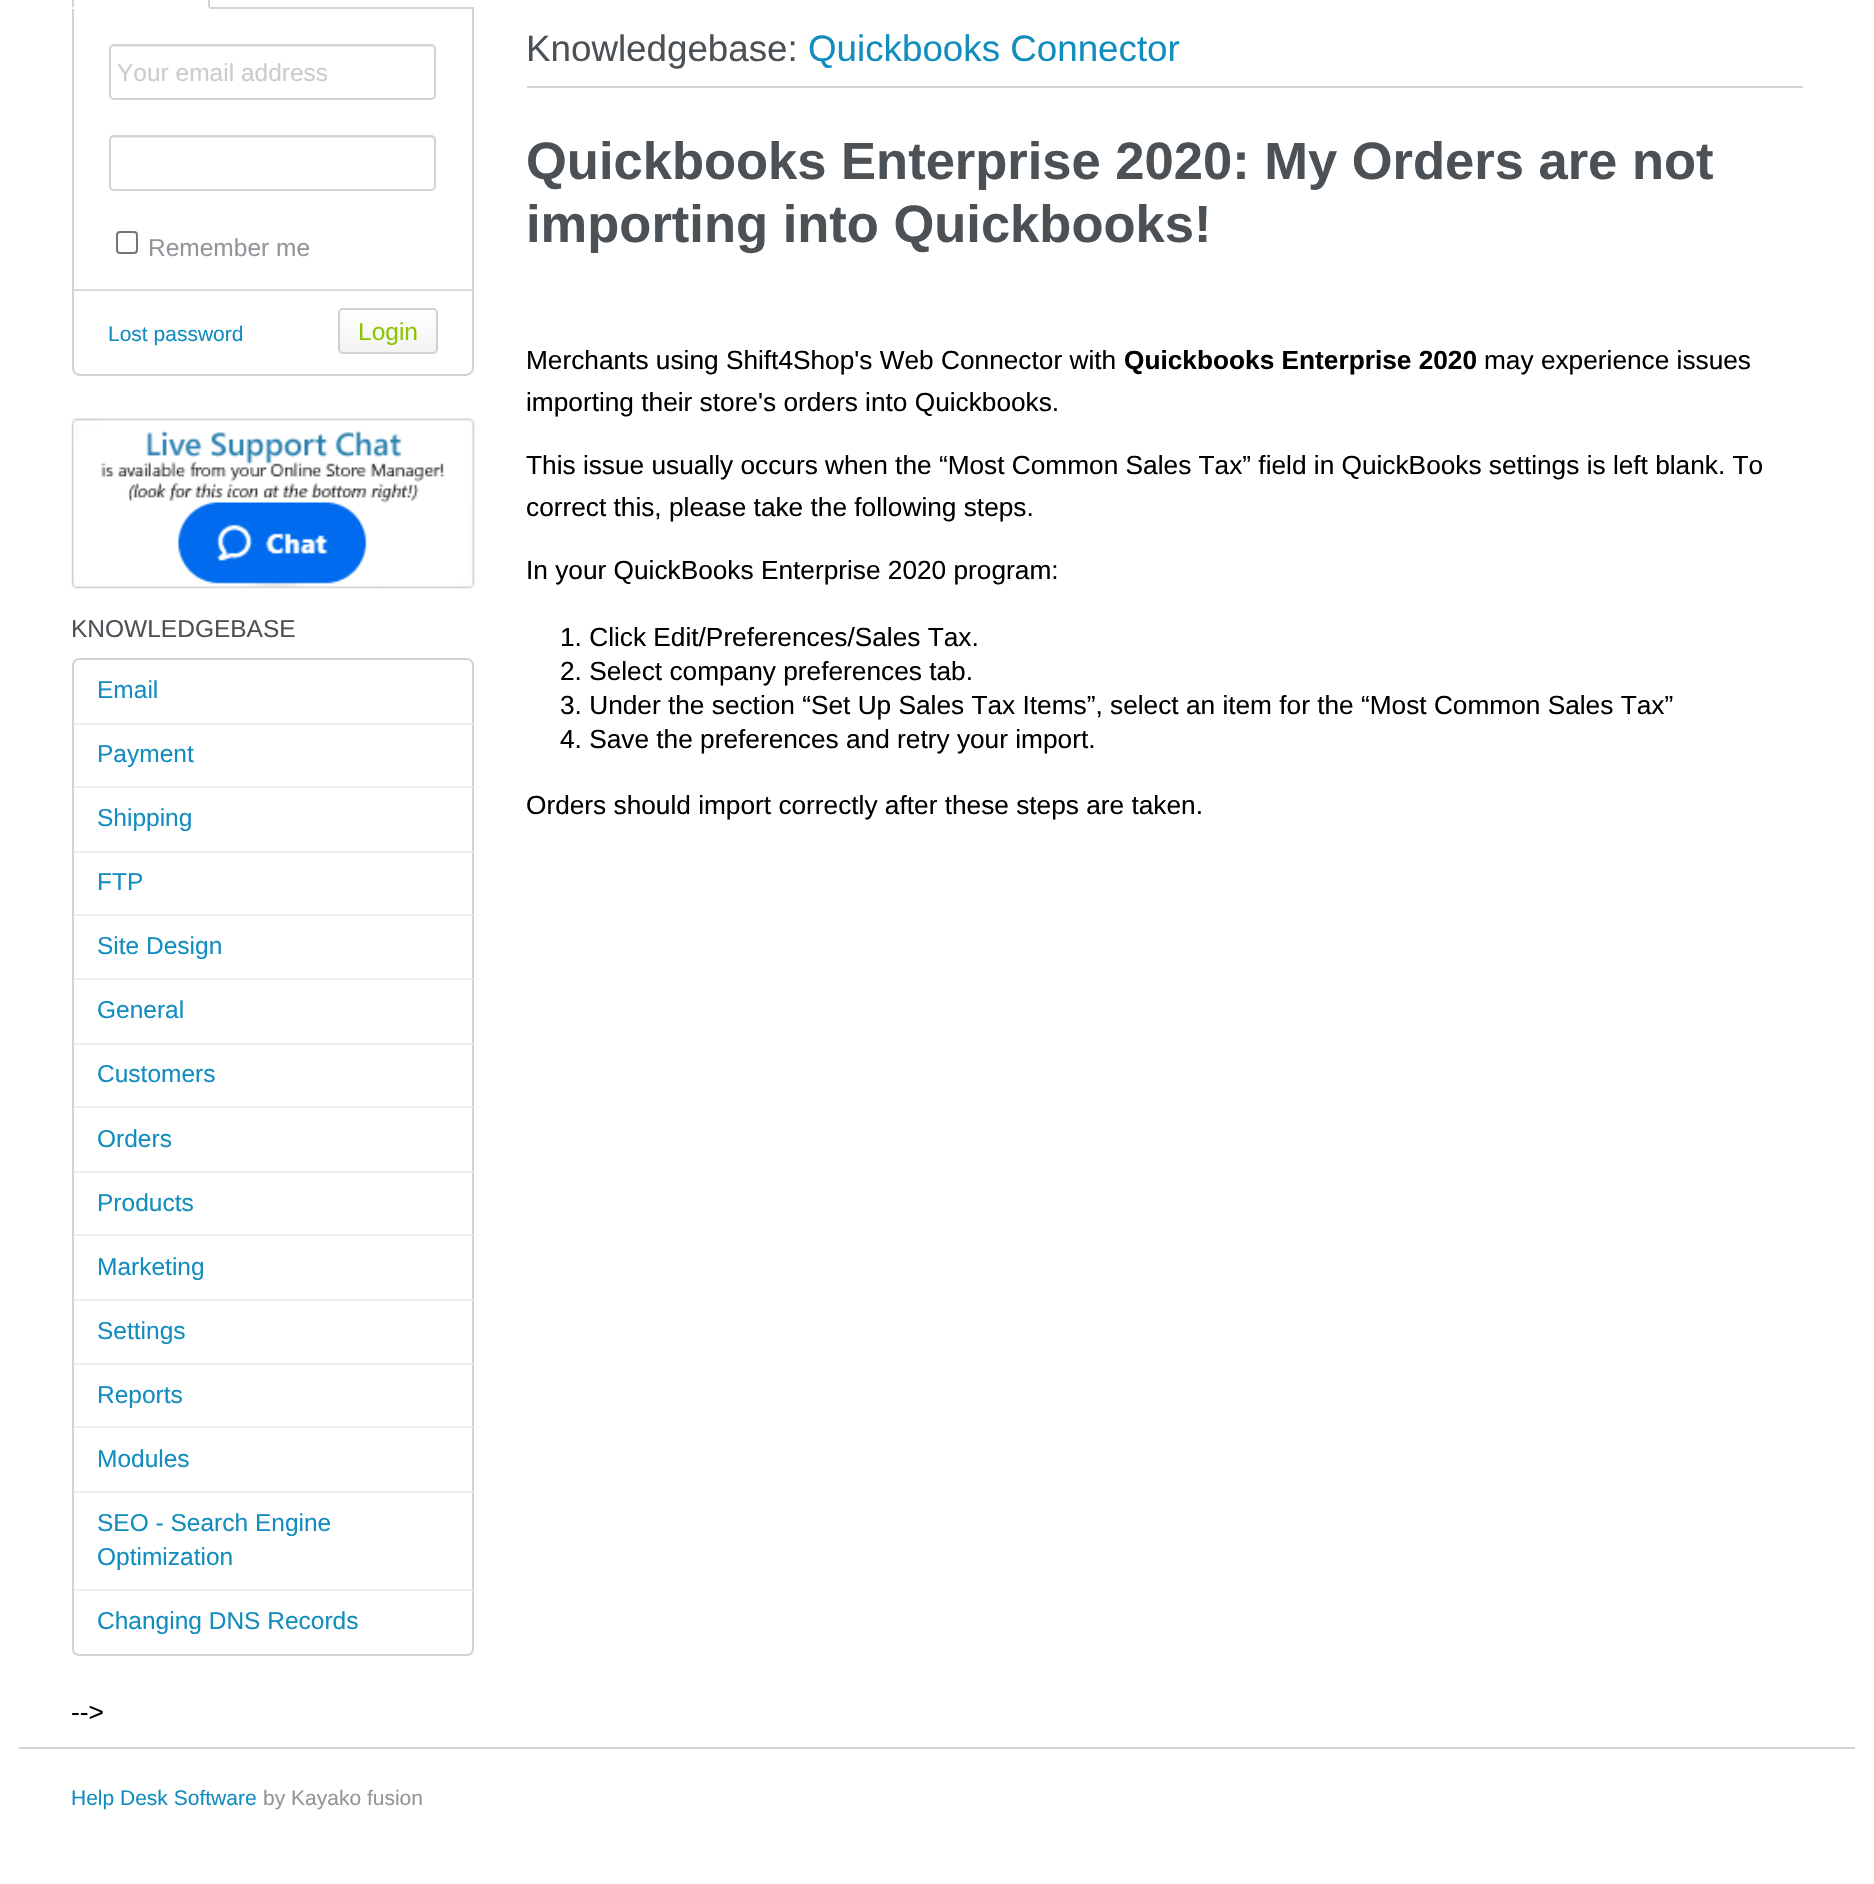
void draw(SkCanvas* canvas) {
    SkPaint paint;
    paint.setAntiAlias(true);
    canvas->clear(0xFFFFFFFF);
    paint.setColor(0xFFCFD4D6);
    canvas->drawRect(SkRect::MakeXYWH(210, 7, 264, 2), paint);
    canvas->drawPath(SkPathBuilder().moveTo(210, 9).lineTo(210, -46).cubicTo(210, -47, 209, -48, 209, -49).lineTo(207, -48).cubicTo(209, -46, 208, 0, 208, 7).close().detach(), paint);
    paint.setColor(0xFFFFFFFF);
    canvas->drawPath(SkPathBuilder().moveTo(210, 9).lineTo(72, 9).lineTo(74, 6).lineTo(74, 7).lineTo(208, 7).close().detach(), paint);
    paint.setColor(0xFFCFD4D6);
    canvas->drawPath(SkPathBuilder().moveTo(72, 8).lineTo(72, -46).cubicTo(72, -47, 72, -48, 73, -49).lineTo(75, -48).cubicTo(73, -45, 74, 0, 74, 6).close().detach(), paint);
    canvas->drawPath(SkPathBuilder(SkPathFillType::kEvenOdd).moveTo(72, 9).lineTo(474, 9).lineTo(474, 368).cubicTo(474, 372, 470, 376, 466, 376).lineTo(80, 376).cubicTo(76, 376, 72, 372, 72, 368).close().moveTo(74, 9).lineTo(472, 9).lineTo(472, 368).cubicTo(472, 371, 469, 374, 466, 374).lineTo(80, 374).cubicTo(77, 374, 74, 371, 74, 368).close().detach(), paint);
    paint.setColor(0xFFECECEC);
    canvas->drawPath(SkPathBuilder().moveTo(114, 47).lineTo(430, 47).cubicTo(432, 47, 434, 49, 434, 51).lineTo(434, 50).cubicTo(434, 48, 432, 46, 430, 46).lineTo(114, 46).cubicTo(112, 46, 110, 48, 110, 50).lineTo(110, 51).cubicTo(110, 49, 112, 47, 114, 47).close().detach(), paint);
    paint.setStyle(SkPaint::kStroke_Style);
    paint.setStrokeWidth(2);
    paint.setColor(0xFFCFD4D6);
    canvas->drawRoundRect(SkRect::MakeXYWH(110, 45, 325, 54), 4, 4, paint);
    SkFont font1(fontMgr->matchFamilyStyle("Liberation Sans", SkFontStyle::Normal()), 24.5f);
    font1.setSubpixel(true);
    paint.setStyle(SkPaint::kFill_Style);
    paint.setColor(0xFFCCCCCC);
    canvas->drawString("Your email address", 117, 81, font1, paint);
    paint.setColor(0xFFECECEC);
    canvas->drawPath(SkPathBuilder().moveTo(114, 138).lineTo(430, 138).cubicTo(432, 138, 434, 140, 434, 142).lineTo(434, 141).cubicTo(434, 139, 432, 137, 430, 137).lineTo(114, 137).cubicTo(112, 137, 110, 139, 110, 141).lineTo(110, 142).cubicTo(110, 140, 112, 138, 114, 138).close().detach(), paint);
    paint.setStyle(SkPaint::kStroke_Style);
    paint.setColor(0xFFCFD4D6);
    canvas->drawRoundRect(SkRect::MakeXYWH(110, 136, 325, 54), 4, 4, paint);
    paint.setColor(0xFF767676);
    canvas->drawRoundRect(SkRect::MakeXYWH(117, 232, 20, 21), 3, 3, paint);
    paint.setStyle(SkPaint::kFill_Style);
    paint.setColor(0xFF92969B);
    canvas->drawString("Remember me", 148, 256, font1, paint);
    paint.setColor(0xFFD8DBDF);
    canvas->drawRect(SkRect::MakeXYWH(74, 289, 399, 2), paint);
    SkFont font2(fontMgr->matchFamilyStyle("Liberation Sans", SkFontStyle::Normal()), 21);
    font2.setSubpixel(true);
    paint.setColor(0xFF128DBE);
    canvas->drawString("Lost password", 108, 341, font2, paint);
    canvas->save();
    canvas->clipPath(SkPathBuilder().moveTo(343, 308).lineTo(433, 308).cubicTo(436, 308, 438, 310, 438, 313).lineTo(438, 349).cubicTo(438, 352, 436, 354, 433, 354).lineTo(343, 354).cubicTo(340, 354, 338, 352, 338, 349).lineTo(338, 313).cubicTo(338, 310, 340, 308, 343, 308).close().detach(), true);
    {
        const SkColor colors[] = {0xFFFFFFFF, 0xFFF3F3F3};
        const float stops[] = {0, 1};
        const SkPoint ends[] = {{340, 310}, {340, 352}};
        paint.setShader(SkGradientShader::MakeLinear(ends, colors, stops, 2, SkTileMode::kClamp));
        paint.setAlpha(255);
    }
    canvas->drawRect(SkRect::MakeXYWH(338, 310, 100, 42), paint);
    canvas->restore();
    paint.setStyle(SkPaint::kStroke_Style);
    paint.setShader(nullptr);
    paint.setColor(0xFFCDD2D4);
    canvas->drawRoundRect(SkRect::MakeXYWH(339, 309, 98, 44), 4, 4, paint);
    paint.setStyle(SkPaint::kFill_Style);
    paint.setColor(0xFF8AC500);
    canvas->drawString("Login", 358, 340, font1, paint);
    canvas->drawImageRect(SkImages::DeferredFromEncodedData(SkData::MakeFromFileName("img1.png")), SkRect::MakeXYWH(71, 418, 404, 171), SkSamplingOptions());
    paint.setColor(0xFF4C5156);
    canvas->drawString("KNOWLEDGEBASE", 71, 637, font1, paint);
    paint.setStyle(SkPaint::kStroke_Style);
    paint.setColor(0xFFCFD4D6);
    canvas->drawRoundRect(SkRect::MakeXYWH(73, 659, 400, 996), 6, 6, paint);
    paint.setStyle(SkPaint::kFill_Style);
    paint.setColor(0xFFEEEEEE);
    canvas->drawRect(SkRect::MakeXYWH(74, 723, 399, 2), paint);
    paint.setColor(0xFF128DBE);
    canvas->drawString("Email", 97, 698, font1, paint);
    paint.setColor(0xFFEEEEEE);
    canvas->drawRect(SkRect::MakeXYWH(74, 786, 399, 2), paint);
    paint.setColor(0xFF128DBE);
    canvas->drawString("Payment", 97, 762, font1, paint);
    paint.setColor(0xFFEEEEEE);
    canvas->drawRect(SkRect::MakeXYWH(74, 851, 399, 2), paint);
    paint.setColor(0xFF128DBE);
    canvas->drawString("Shipping", 97, 826, font1, paint);
    paint.setColor(0xFFEEEEEE);
    canvas->drawRect(SkRect::MakeXYWH(74, 914, 399, 2), paint);
    paint.setColor(0xFF128DBE);
    canvas->drawString("FTP", 97, 890, font1, paint);
    paint.setColor(0xFFEEEEEE);
    canvas->drawRect(SkRect::MakeXYWH(74, 978, 399, 2), paint);
    paint.setColor(0xFF128DBE);
    canvas->drawString("Site Design", 97, 954, font1, paint);
    paint.setColor(0xFFEEEEEE);
    canvas->drawRect(SkRect::MakeXYWH(74, 1043, 399, 2), paint);
    paint.setColor(0xFF128DBE);
    canvas->drawString("General", 97, 1018, font1, paint);
    paint.setColor(0xFFEEEEEE);
    canvas->drawRect(SkRect::MakeXYWH(74, 1106, 399, 2), paint);
    paint.setColor(0xFF128DBE);
    canvas->drawString("Customers", 97, 1082, font1, paint);
    paint.setColor(0xFFEEEEEE);
    canvas->drawRect(SkRect::MakeXYWH(74, 1171, 399, 2), paint);
    paint.setColor(0xFF128DBE);
    canvas->drawString("Orders", 97, 1147, font1, paint);
    paint.setColor(0xFFEEEEEE);
    canvas->drawRect(SkRect::MakeXYWH(74, 1234, 399, 2), paint);
    paint.setColor(0xFF128DBE);
    canvas->drawString("Products", 97, 1211, font1, paint);
    paint.setColor(0xFFEEEEEE);
    canvas->drawRect(SkRect::MakeXYWH(74, 1299, 399, 2), paint);
    paint.setColor(0xFF128DBE);
    canvas->drawString("Marketing", 97, 1275, font1, paint);
    paint.setColor(0xFFEEEEEE);
    canvas->drawRect(SkRect::MakeXYWH(74, 1363, 399, 2), paint);
    paint.setColor(0xFF128DBE);
    canvas->drawString("Settings", 97, 1339, font1, paint);
    paint.setColor(0xFFEEEEEE);
    canvas->drawRect(SkRect::MakeXYWH(74, 1426, 399, 2), paint);
    paint.setColor(0xFF128DBE);
    canvas->drawString("Reports", 97, 1403, font1, paint);
    paint.setColor(0xFFEEEEEE);
    canvas->drawRect(SkRect::MakeXYWH(74, 1491, 399, 2), paint);
    paint.setColor(0xFF128DBE);
    canvas->drawString("Modules", 97, 1467, font1, paint);
    paint.setColor(0xFFEEEEEE);
    canvas->drawRect(SkRect::MakeXYWH(74, 1589, 399, 2), paint);
    paint.setColor(0xFF128DBE);
    canvas->drawString("SEO - Search Engine", 97, 1531, font1, paint);
    canvas->drawString("Optimization", 97, 1565, font1, paint);
    canvas->drawString("Changing DNS Records", 97, 1629, font1, paint);
    SkFont font3(fontMgr->matchFamilyStyle("Liberation Sans", SkFontStyle::Normal()), 26.25f);
    font3.setSubpixel(true);
    paint.setColor(0xFF000000);
    canvas->drawString("-->", 71, 1721, font3, paint);
    paint.setColor(0xFFCFD4D6);
    canvas->drawRect(SkRect::MakeXYWH(527, 86, 1276, 2), paint);
    SkFont font4(fontMgr->matchFamilyStyle("Liberation Sans", SkFontStyle::Normal()), 36.75f);
    font4.setSubpixel(true);
    paint.setColor(0xFF4C5156);
    canvas->drawString("Knowledgebase:", 526, 61, font4, paint);
    paint.setColor(0xFF128DBE);
    canvas->drawString("Quickbooks Connector", 808, 61, font4, paint);
    SkFont font5(fontMgr->matchFamilyStyle("Liberation Sans", SkFontStyle::Bold()), 52.5f);
    font5.setSubpixel(true);
    paint.setColor(0xFF4C5156);
    canvas->drawString("Quickbooks Enterprise 2020: My Orders are not", 526, 179, font5, paint);
    canvas->drawString("importing into Quickbooks!", 526, 242, font5, paint);
    paint.setColor(0xFF000000);
    canvas->drawString("Merchants using Shift4Shop's Web Connector with", 526, 369, font3, paint);
    SkFont font6(fontMgr->matchFamilyStyle("Liberation Sans", SkFontStyle::Bold()), 26.25f);
    font6.setSubpixel(true);
    canvas->drawString("Quickbooks Enterprise 2020", 1124, 369, font6, paint);
    canvas->drawString("may experience issues", 1484, 369, font3, paint);
    canvas->drawString("importing their store's orders into Quickbooks.", 526, 411, font3, paint);
    canvas->drawString("This issue usually occurs when the “Most Common Sales Tax” field in QuickBooks settings is left blank. To", 526, 474, font3, paint);
    canvas->drawString("correct this, please take the following steps.", 526, 516, font3, paint);
    canvas->drawString("In your QuickBooks Enterprise 2020 program:", 526, 579, font3, paint);
    canvas->drawString("1. Click Edit/Preferences/Sales Tax.", 560, 646, font3, paint);
    canvas->drawString("2. Select company preferences tab.", 560, 680, font3, paint);
    canvas->drawString("3. Under the section “Set Up Sales Tax Items”, select an item for the “Most Common Sales Tax”", 560, 714, font3, paint);
    canvas->drawString("4. Save the preferences and retry your import.", 560, 748, font3, paint);
    canvas->drawString("Orders should import correctly after these steps are taken.", 526, 814, font3, paint);
    paint.setColor(0xFFCFD4D6);
    canvas->drawRect(SkRect::MakeXYWH(19, 1747, 1836, 2), paint);
    paint.setColor(0xFF128DBE);
    canvas->drawString("Help Desk Software", 71, 1805, font2, paint);
    paint.setColor(0xFF92969B);
    canvas->drawString("by Kayako fusion", 263, 1805, font2, paint);
}
